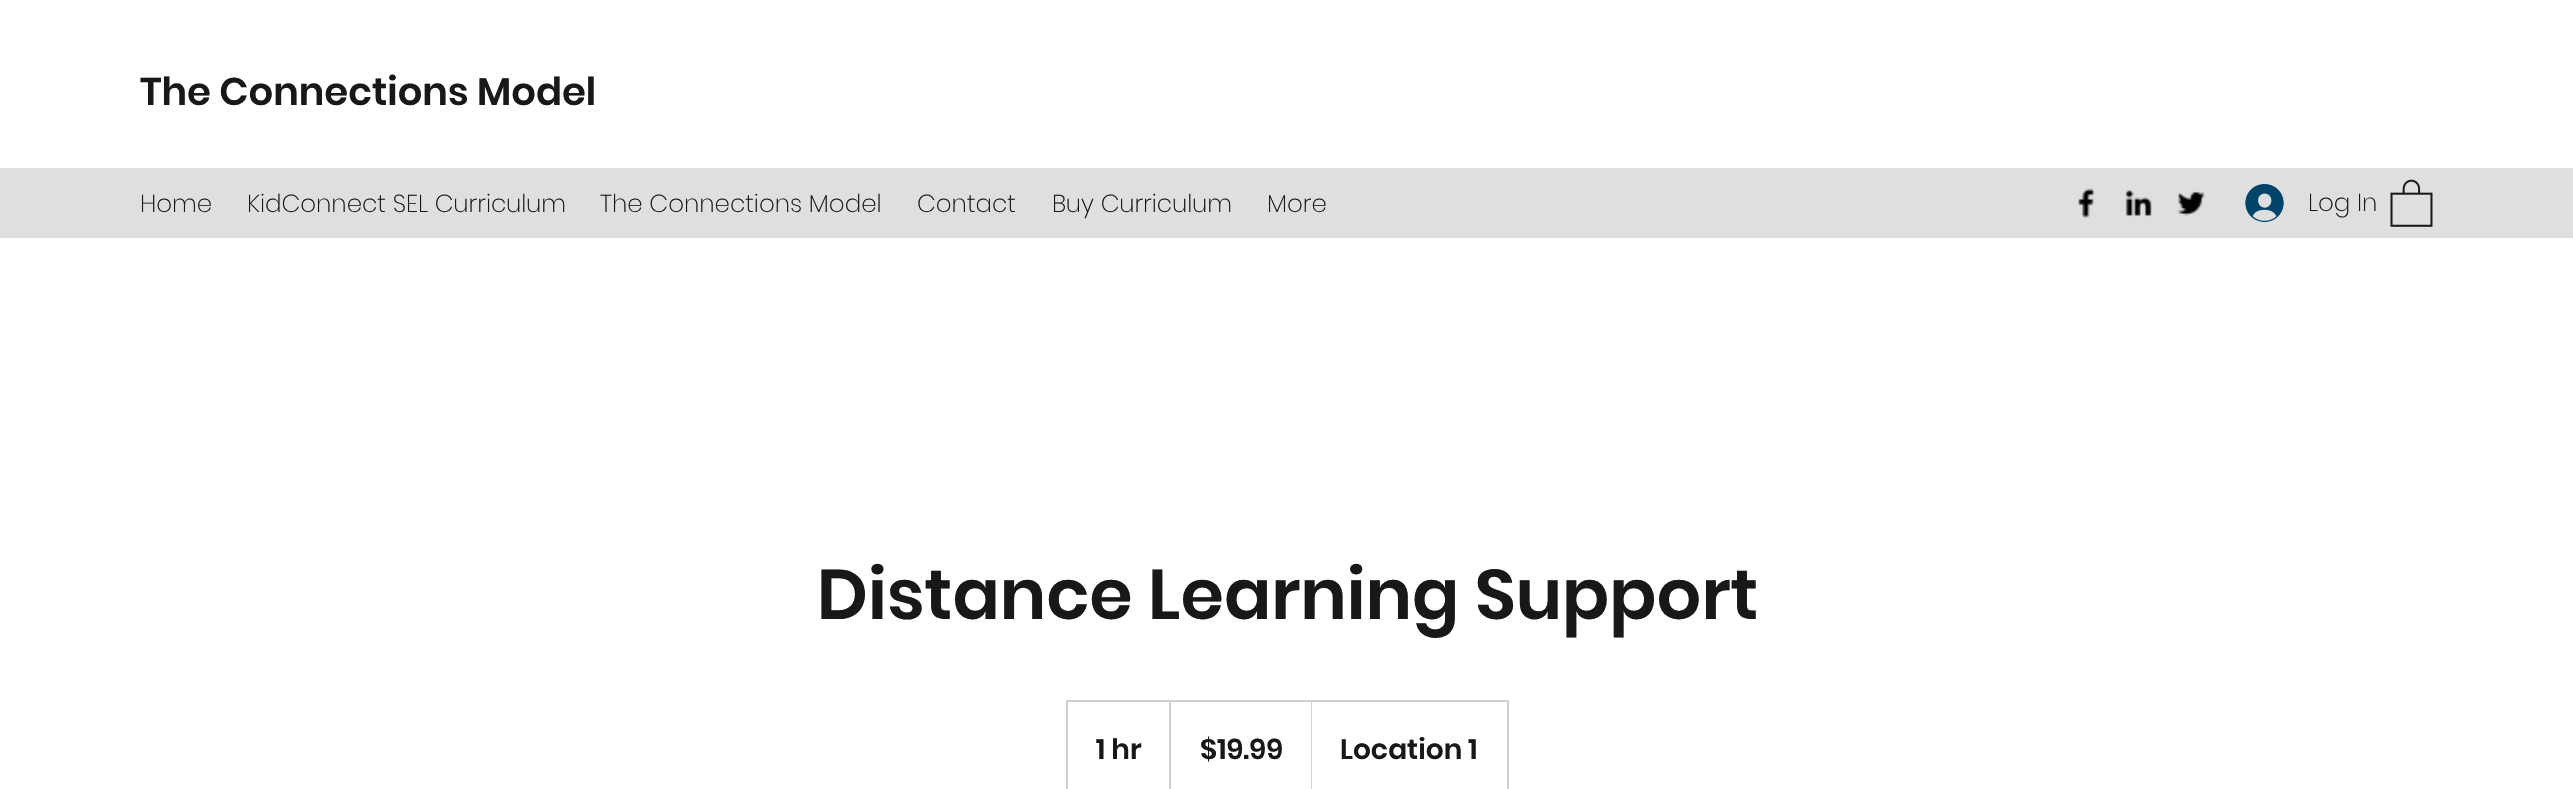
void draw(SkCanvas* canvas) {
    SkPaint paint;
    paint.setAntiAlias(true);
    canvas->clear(0xFFFFFFFF);
    SkFont font1(fontMgr->matchFamilyStyle("Poppins", SkFontStyle(600, SkFontStyle::kNormal_Width, SkFontStyle::kUpright_Slant)), 38.5f);
    font1.setSubpixel(true);
    paint.setColor(0xFF181818);
    canvas->drawString("The Connections Model", 140, 105, font1, paint);
    paint.setColor(0xFFDFDFDF);
    canvas->drawRect(SkRect::MakeXYWH(0, 168, 2573, 70), paint);
    SkFont font2(fontMgr->matchFamilyStyle("Poppins", SkFontStyle(200, SkFontStyle::kNormal_Width, SkFontStyle::kUpright_Slant)), 24.5f);
    font2.setSubpixel(true);
    paint.setColor(0xFF181818);
    canvas->drawString("Home", 140, 212, font2, paint);
    canvas->drawString("KidConnect SEL Curriculum", 247, 212, font2, paint);
    canvas->drawString("The Connections Model", 600, 212, font2, paint);
    canvas->drawString("Contact", 917, 212, font2, paint);
    canvas->drawString("Buy Curriculum", 1052, 212, font2, paint);
    canvas->drawString("More", 1267, 212, font2, paint);
    canvas->drawImageRect(SkImages::DeferredFromEncodedData(SkData::MakeFromFileName("img1.png")), SkRect::MakeXYWH(2078, 188, 17, 30), SkSamplingOptions());
    canvas->drawImageRect(SkImages::DeferredFromEncodedData(SkData::MakeFromFileName("img2.png")), SkRect::MakeXYWH(2125, 190, 27, 27), SkSamplingOptions());
    canvas->drawImageRect(SkImages::DeferredFromEncodedData(SkData::MakeFromFileName("img3.png")), SkRect::MakeXYWH(2177, 191, 29, 25), SkSamplingOptions());
    canvas->drawImageRect(SkImages::DeferredFromEncodedData(SkData::MakeFromFileName("img4.png")), SkRect::MakeXYWH(2245, 184, 39, 38), SkSamplingOptions());
    canvas->drawString("Log In", 2308, 211, font2, paint);
    canvas->drawImageRect(SkImages::DeferredFromEncodedData(SkData::MakeFromFileName("img5.png")), SkRect::MakeXYWH(2390, 179, 43, 48), SkSamplingOptions());
    SkFont font3(fontMgr->matchFamilyStyle("Poppins", SkFontStyle(600, SkFontStyle::kNormal_Width, SkFontStyle::kUpright_Slant)), 70);
    font3.setSubpixel(true);
    canvas->drawString("Distance Learning Support", 817, 619, font3, paint);
    paint.setStyle(SkPaint::kStroke_Style);
    paint.setStrokeWidth(2);
    paint.setColor(0xFFD1D1D1);
    canvas->drawRect(SkRect::MakeXYWH(1067, 701, 441, 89), paint);
    SkFont font4(fontMgr->matchFamilyStyle("Poppins", SkFontStyle(600, SkFontStyle::kNormal_Width, SkFontStyle::kUpright_Slant)), 28);
    font4.setSubpixel(true);
    paint.setStyle(SkPaint::kFill_Style);
    paint.setColor(0xFF181818);
    canvas->drawString("1 hr", 1096, 759, font4, paint);
    canvas->save();
    canvas->clipRect(SkRect::MakeXYWH(1068, 702, 439, 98));
    paint.setColor(0xFFD1D1D1);
    canvas->drawPath(SkPathBuilder().moveTo(1169, 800).lineTo(1169, 700).lineTo(1171, 702).lineTo(1171, 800).close().detach(), paint);
    canvas->restore();
    paint.setColor(0xFF181818);
    canvas->drawString("$19.99", 1200, 759, font4, paint);
    paint.setColor(0xFFD1D1D1);
    canvas->drawPath(SkPathBuilder().moveTo(1311, 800).lineTo(1311, 700).lineTo(1312, 702).lineTo(1312, 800).close().detach(), paint);
    paint.setColor(0xFF181818);
    canvas->drawString("Location 1", 1340, 759, font4, paint);
}
